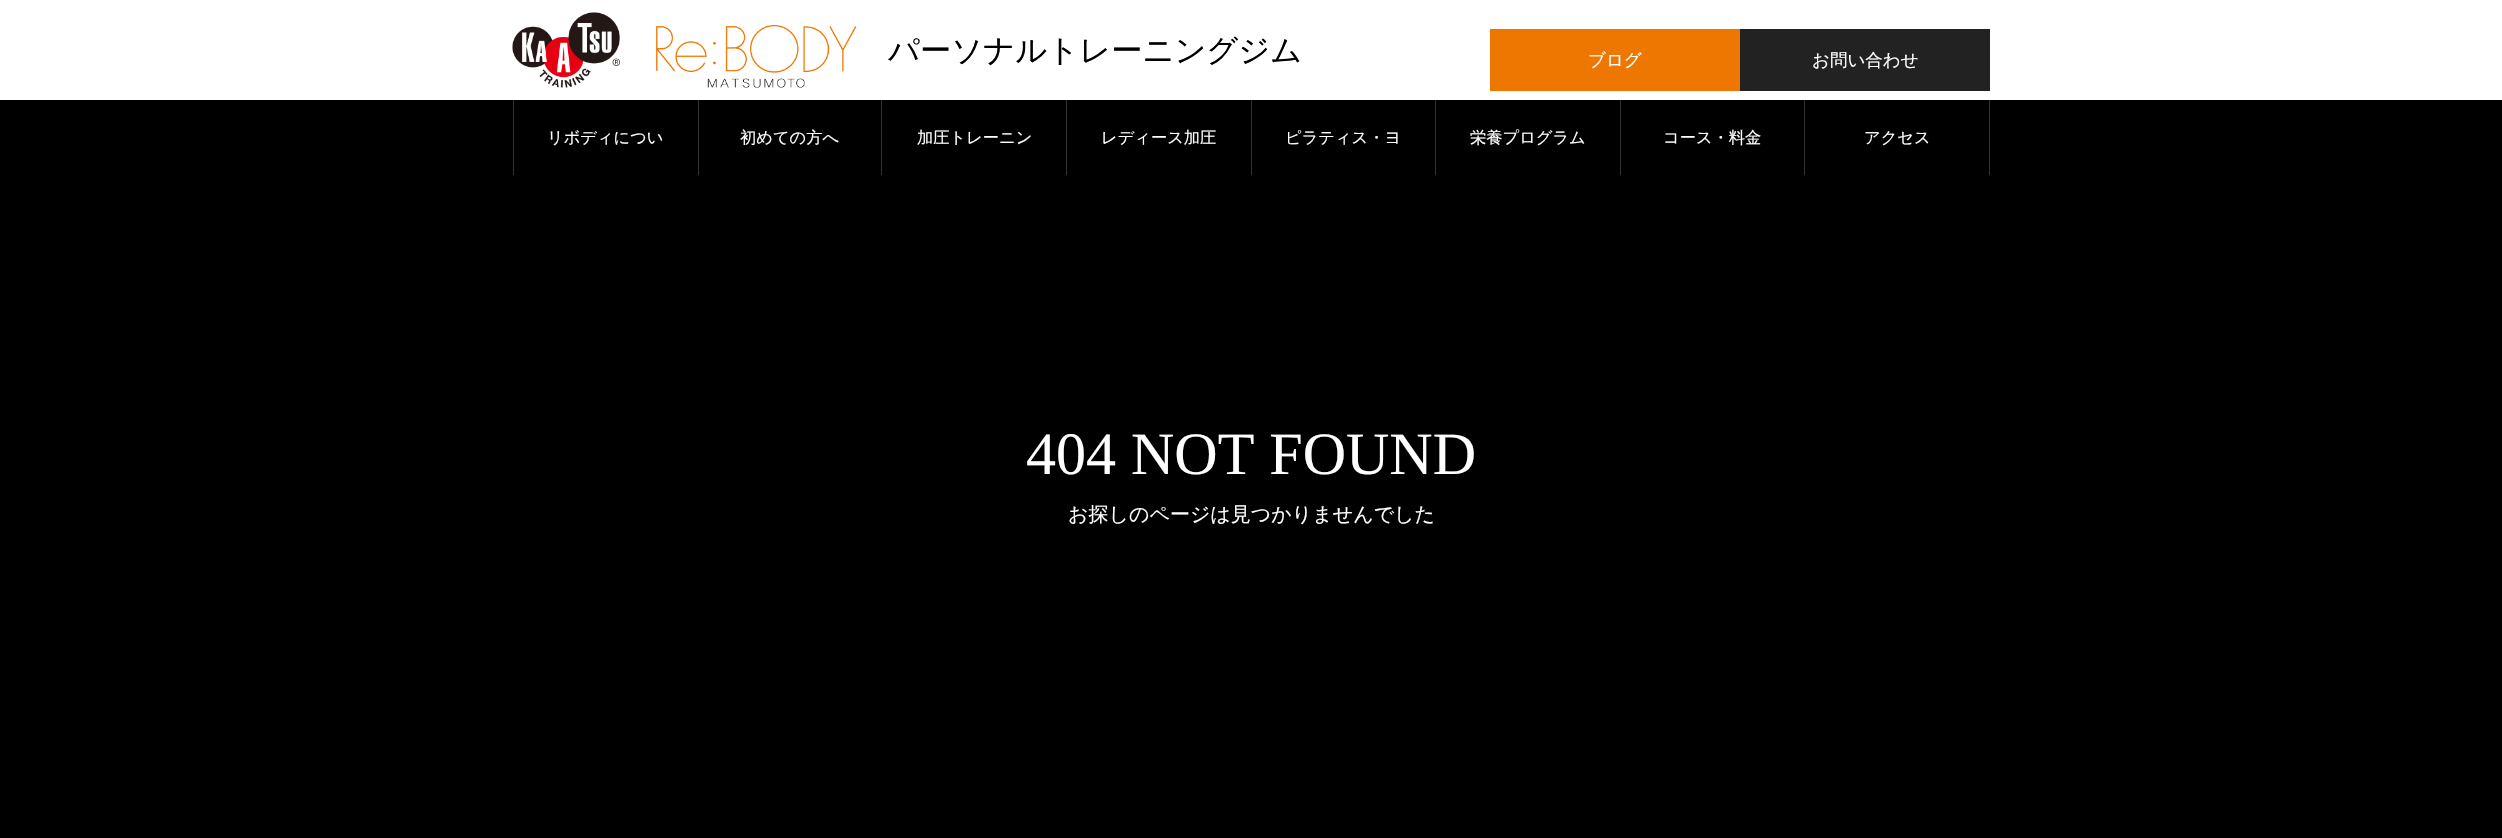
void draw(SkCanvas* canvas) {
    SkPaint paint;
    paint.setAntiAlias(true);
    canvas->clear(0xFFFFFFFF);
    canvas->drawImageRect(SkImages::DeferredFromEncodedData(SkData::MakeFromFileName("img1.png")), SkRect::MakeXYWH(512, 12, 345, 76), SkSamplingOptions());
    SkFont font1(fontMgr->matchFamilyStyle("WenQuanYi Zen Hei", SkFontStyle(500, SkFontStyle::kNormal_Width, SkFontStyle::kUpright_Slant)), 31.25f);
    font1.setSubpixel(true);
    paint.setColor(0xFF000000);
    canvas->drawString("パーソナルトレーニングジム", 888, 61, font1, paint);
    paint.setColor(0xFFED7700);
    canvas->drawRect(SkRect::MakeXYWH(1490, 29, 250, 62), paint);
    SkFont font2(fontMgr->matchFamilyStyle("WenQuanYi Zen Hei", SkFontStyle(500, SkFontStyle::kNormal_Width, SkFontStyle::kUpright_Slant)), 17.5f);
    font2.setSubpixel(true);
    paint.setColor(0xFFFFFFFF);
    canvas->drawString("ブログ", 1588, 66, font2, paint);
    paint.setColor(0xFF222222);
    canvas->drawRect(SkRect::MakeXYWH(1740, 29, 250, 62), paint);
    paint.setColor(0xFFFFFFFF);
    canvas->drawString("お問い合わせ", 1812, 66, font2, paint);
    paint.setColor(0xFF000000);
    canvas->drawRect(SkRect::MakeXYWH(0, 100, 2502, 738), paint);
    paint.setColor(0xFF333333);
    canvas->drawRect(SkRect::MakeXYWH(513, 100, 1, 75), paint);
    canvas->drawRect(SkRect::MakeXYWH(698, 100, 1, 75), paint);
    SkFont font3(fontMgr->matchFamilyStyle("WenQuanYi Zen Hei", SkFontStyle(500, SkFontStyle::kNormal_Width, SkFontStyle::kUpright_Slant)), 16.25f);
    font3.setSubpixel(true);
    paint.setColor(0xFFFFFFFF);
    canvas->drawString("リボディについ", 547, 143, font3, paint);
    paint.setColor(0xFF333333);
    canvas->drawRect(SkRect::MakeXYWH(881, 100, 1, 75), paint);
    paint.setColor(0xFFFFFFFF);
    canvas->drawString("初めての方へ", 740, 143, font3, paint);
    paint.setColor(0xFF333333);
    canvas->drawRect(SkRect::MakeXYWH(1066, 100, 1, 75), paint);
    paint.setColor(0xFFFFFFFF);
    canvas->drawString("加圧トレーニン", 917, 143, font3, paint);
    paint.setColor(0xFF333333);
    canvas->drawRect(SkRect::MakeXYWH(1251, 100, 1, 75), paint);
    paint.setColor(0xFFFFFFFF);
    canvas->drawString("レディース加圧", 1101, 143, font3, paint);
    paint.setColor(0xFF333333);
    canvas->drawRect(SkRect::MakeXYWH(1435, 100, 1, 75), paint);
    paint.setColor(0xFFFFFFFF);
    canvas->drawString("ピラティス・ヨ", 1285, 143, font3, paint);
    paint.setColor(0xFF333333);
    canvas->drawRect(SkRect::MakeXYWH(1620, 100, 1, 75), paint);
    paint.setColor(0xFFFFFFFF);
    canvas->drawString("栄養プログラム", 1470, 143, font3, paint);
    paint.setColor(0xFF333333);
    canvas->drawRect(SkRect::MakeXYWH(1804, 100, 1, 75), paint);
    paint.setColor(0xFFFFFFFF);
    canvas->drawString("コース・料金", 1663, 143, font3, paint);
    paint.setColor(0xFF333333);
    canvas->drawRect(SkRect::MakeXYWH(1989, 100, 1, 75), paint);
    paint.setColor(0xFFFFFFFF);
    canvas->drawString("アクセス", 1864, 143, font3, paint);
    SkFont font4(fontMgr->matchFamilyStyle("Liberation Serif", SkFontStyle::Normal()), 60);
    font4.setSubpixel(true);
    canvas->drawString("404 NOT FOUND", 1026, 474, font4, paint);
    SkFont font5(fontMgr->matchFamilyStyle("WenQuanYi Zen Hei", SkFontStyle(500, SkFontStyle::kNormal_Width, SkFontStyle::kUpright_Slant)), 20);
    font5.setSubpixel(true);
    canvas->drawString("お探しのページは見つかりませんでした", 1068, 521, font5, paint);
}
